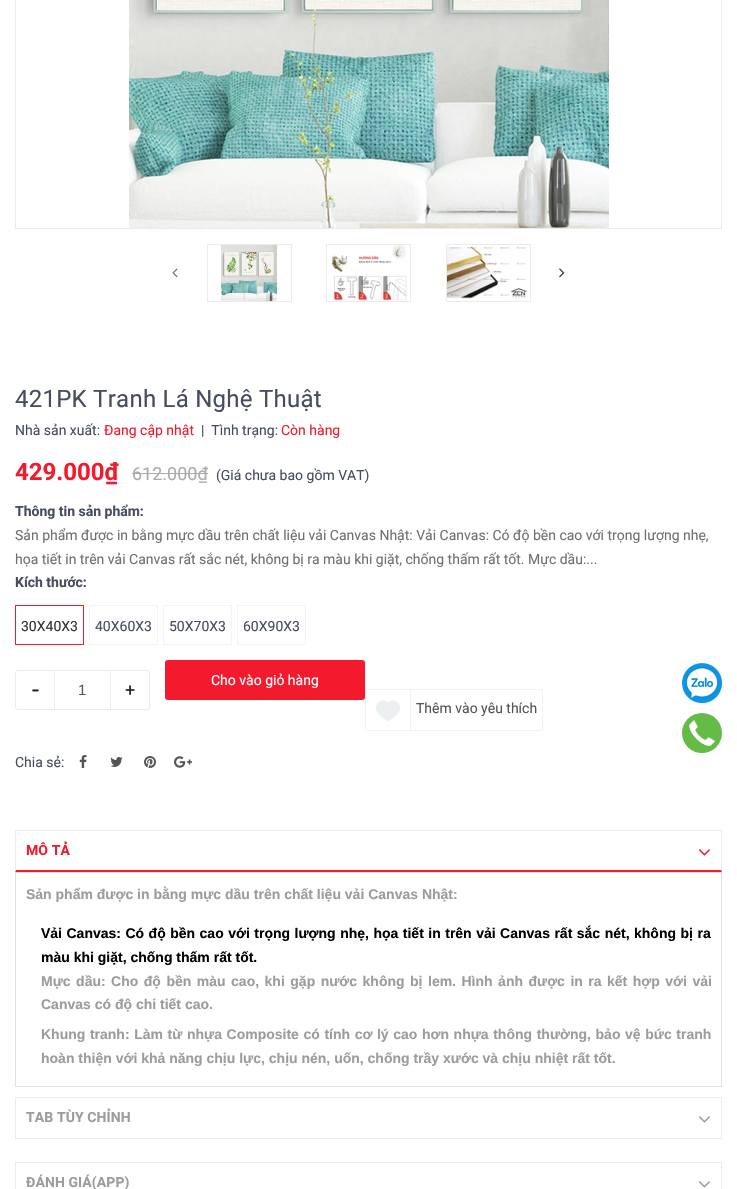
void draw(SkCanvas* canvas) {
    SkPaint paint;
    paint.setAntiAlias(true);
    auto spacedText = [&](const char* s, float x, float y, const SkFont& font, const SkPaint& ink, float letter, float word) {
        std::vector<SkGlyphID> glyphs(font.countText(s, strlen(s), SkTextEncoding::kUTF8));
        std::vector<float> xs(glyphs.size());
        font.textToGlyphs(s, strlen(s), SkTextEncoding::kUTF8, glyphs);
        font.getXPos(glyphs, xs, x);
        float extra = 0;
        for (size_t i = 0; i < glyphs.size(); i++) {
            xs[i] += extra;
            extra += letter + word * (glyphs[i] == font.unicharToGlyph(' '));
        }
        canvas->drawTextBlob(SkTextBlob::MakeFromPosHGlyphs(glyphs, xs, y, font), 0, 0, ink);
    };
    canvas->clear(0xFFFFFFFF);
    paint.setStyle(SkPaint::kStroke_Style);
    paint.setStrokeWidth(1);
    paint.setColor(0xFFEBEBEB);
    canvas->drawRect(SkRect::MakeXYWH(15.5f, -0.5f, 706, 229), paint);
    canvas->drawImageRect(SkImages::DeferredFromEncodedData(SkData::MakeFromFileName("img1.png")), SkRect::MakeXYWH(129, 0, 480, 228), SkSamplingOptions());
    canvas->drawRect(SkRect::MakeXYWH(207.5f, 244.5f, 84, 57), paint);
    canvas->drawImageRect(SkImages::DeferredFromEncodedData(SkData::MakeFromFileName("img2.png")), SkRect::MakeXYWH(221, 245, 56, 56), SkSamplingOptions());
    canvas->drawRect(SkRect::MakeXYWH(326.5f, 244.5f, 84, 57), paint);
    canvas->drawImageRect(SkImages::DeferredFromEncodedData(SkData::MakeFromFileName("img3.png")), SkRect::MakeXYWH(331, 245, 76, 56), SkSamplingOptions());
    canvas->drawRect(SkRect::MakeXYWH(446.5f, 244.5f, 84, 57), paint);
    canvas->drawImageRect(SkImages::DeferredFromEncodedData(SkData::MakeFromFileName("img4.png")), SkRect::MakeXYWH(447, 247, 81, 52), SkSamplingOptions());
    canvas->drawImageRect(SkImages::DeferredFromEncodedData(SkData::MakeFromFileName("img5.png")), SkRect::MakeXYWH(172, 268, 6, 10), SkSamplingOptions());
    canvas->drawImageRect(SkImages::DeferredFromEncodedData(SkData::MakeFromFileName("img6.png")), SkRect::MakeXYWH(559, 268, 6, 10), SkSamplingOptions());
    SkFont font1(fontMgr->matchFamilyStyle("Roboto", SkFontStyle::Normal()), 24);
    font1.setSubpixel(true);
    paint.setStyle(SkPaint::kFill_Style);
    paint.setColor(0xFF474C5F);
    spacedText("421PK Tranh Lá Nghệ Thuật", 15, 407, font1, paint, 0.25f, 0);
    SkFont font2(fontMgr->matchFamilyStyle("Roboto", SkFontStyle::Normal()), 14);
    font2.setSubpixel(true);
    canvas->drawString("Nhà sản xuất:", 15, 435, font2, paint);
    paint.setColor(0xFFF21A2C);
    canvas->drawString("Đang cập nhật", 104, 435, font2, paint);
    paint.setColor(0xFF474C5F);
    canvas->drawString("|  Tình trạng:", 201, 435, font2, paint);
    paint.setColor(0xFFF21A2C);
    canvas->drawString("Còn hàng", 281, 435, font2, paint);
    SkFont font3(fontMgr->matchFamilyStyle("Roboto", SkFontStyle::Bold()), 24);
    font3.setSubpixel(true);
    canvas->drawString("429.000₫", 15, 480, font3, paint);
    SkFont font4(fontMgr->matchFamilyStyle("Roboto", SkFontStyle::Normal()), 18);
    font4.setSubpixel(true);
    paint.setColor(0xFFACACAC);
    canvas->drawString("612.000₫", 132, 480, font4, paint);
    canvas->drawRect(SkRect::MakeXYWH(132, 473, 76, 1), paint);
    paint.setColor(0xFF474C5F);
    canvas->drawString("(Giá chưa bao gồm VAT)", 216, 480, font2, paint);
    SkFont font5(fontMgr->matchFamilyStyle("Roboto", SkFontStyle::Bold()), 14);
    font5.setSubpixel(true);
    canvas->drawString("Thông tin sản phẩm:", 15, 516, font5, paint);
    paint.setColor(0xFF707070);
    canvas->drawString("Sản phẩm được in bằng mực dầu trên chất liệu vải Canvas Nhật: Vải Canvas: Có độ bền cao với trọng lượng nhẹ,", 15, 540, font2, paint);
    canvas->drawString("họa tiết in trên vải Canvas rất sắc nét, không bị ra màu khi giặt, chống thấm rất tốt. Mực dầu:...", 15, 564, font2, paint);
    paint.setColor(0xFF474C5F);
    canvas->drawString("Kích thước:", 15, 587, font5, paint);
    paint.setStyle(SkPaint::kStroke_Style);
    paint.setColor(0xFFF21A2C);
    canvas->drawRect(SkRect::MakeXYWH(15.5f, 605.5f, 68, 39), paint);
    paint.setStyle(SkPaint::kFill_Style);
    paint.setColor(0xFF333333);
    canvas->drawString("30X40X3", 21, 631, font2, paint);
    paint.setStyle(SkPaint::kStroke_Style);
    paint.setColor(0xFFF3F3F3);
    canvas->drawRect(SkRect::MakeXYWH(89.5f, 605.5f, 68, 39), paint);
    paint.setStyle(SkPaint::kFill_Style);
    paint.setColor(0xFF474C5F);
    canvas->drawString("40X60X3", 95, 631, font2, paint);
    paint.setStyle(SkPaint::kStroke_Style);
    paint.setColor(0xFFF3F3F3);
    canvas->drawRect(SkRect::MakeXYWH(163.5f, 605.5f, 68, 39), paint);
    paint.setStyle(SkPaint::kFill_Style);
    paint.setColor(0xFF474C5F);
    canvas->drawString("50X70X3", 169, 631, font2, paint);
    paint.setStyle(SkPaint::kStroke_Style);
    paint.setColor(0xFFF3F3F3);
    canvas->drawRect(SkRect::MakeXYWH(237.5f, 605.5f, 68, 39), paint);
    paint.setStyle(SkPaint::kFill_Style);
    paint.setColor(0xFF474C5F);
    canvas->drawString("60X90X3", 243, 631, font2, paint);
    paint.setColor(0xFFF21A2C);
    canvas->drawRoundRect(SkRect::MakeXYWH(165, 660, 200, 40), 3, 3, paint);
    paint.setColor(0xFFFFFFFF);
    canvas->drawString("Cho vào giỏ hàng", 211, 685, font2, paint);
    paint.setStyle(SkPaint::kStroke_Style);
    paint.setColor(0xFFEBEBEB);
    canvas->drawPath(SkPathBuilder().moveTo(18, 670.5f).lineTo(54.5f, 670.5f).lineTo(54.5f, 709.5f).lineTo(18, 709.5f).cubicTo(16.5f, 709.5f, 15.5f, 708.5f, 15.5f, 707).lineTo(15.5f, 673).cubicTo(15.5f, 671.5f, 16.5f, 670.5f, 18, 670.5f).close().detach(), paint);
    SkFont font6(fontMgr->matchFamilyStyle("Roboto", SkFontStyle::Normal()), 25);
    font6.setSubpixel(true);
    paint.setStyle(SkPaint::kFill_Style);
    paint.setColor(0xFF222222);
    canvas->drawString("-", 32, 698, font6, paint);
    paint.setColor(0xFFEBEBEB);
    canvas->drawRect(SkRect::MakeXYWH(55, 670, 55, 1), paint);
    canvas->drawRect(SkRect::MakeXYWH(55, 709, 55, 1), paint);
    SkFont font7(fontMgr->matchFamilyStyle("Liberation Sans", SkFontStyle::Normal()), 15);
    font7.setSubpixel(true);
    paint.setColor(0xFF55595C);
    canvas->drawString("1", 78, 695, font7, paint);
    paint.setStyle(SkPaint::kStroke_Style);
    paint.setColor(0xFFEBEBEB);
    canvas->drawPath(SkPathBuilder().moveTo(110.5f, 670.5f).lineTo(147, 670.5f).cubicTo(148.5f, 670.5f, 149.5f, 671.5f, 149.5f, 673).lineTo(149.5f, 707).cubicTo(149.5f, 708.5f, 148.5f, 709.5f, 147, 709.5f).lineTo(110.5f, 709.5f).close().detach(), paint);
    paint.setStyle(SkPaint::kFill_Style);
    paint.setColor(0xFF222222);
    canvas->drawString("+", 125, 696, font4, paint);
    paint.setStyle(SkPaint::kStroke_Style);
    paint.setColor(0xFFF2F2F2);
    canvas->drawRoundRect(SkRect::MakeXYWH(365.5f, 689.5f, 177, 41), 1.5f, 1.5f, paint);
    paint.setStyle(SkPaint::kFill_Style);
    canvas->drawRect(SkRect::MakeXYWH(410, 690, 1, 40), paint);
    canvas->drawImageRect(SkImages::DeferredFromEncodedData(SkData::MakeFromFileName("img7.png")), SkRect::MakeXYWH(376, 700, 24, 22), SkSamplingOptions());
    paint.setColor(0xFF575454);
    canvas->drawString("Thêm vào yêu thích", 416, 713, font2, paint);
    paint.setColor(0xFF474C5F);
    canvas->drawString("Chia sẻ:", 15, 767, font2, paint);
    canvas->drawImageRect(SkImages::DeferredFromEncodedData(SkData::MakeFromFileName("img8.png")), SkRect::MakeXYWH(79, 755, 8, 13), SkSamplingOptions());
    canvas->drawImageRect(SkImages::DeferredFromEncodedData(SkData::MakeFromFileName("img9.png")), SkRect::MakeXYWH(110, 757, 13, 10), SkSamplingOptions());
    canvas->drawImageRect(SkImages::DeferredFromEncodedData(SkData::MakeFromFileName("img10.png")), SkRect::MakeXYWH(144, 756, 12, 12), SkSamplingOptions());
    canvas->drawImageRect(SkImages::DeferredFromEncodedData(SkData::MakeFromFileName("img11.png")), SkRect::MakeXYWH(174, 756, 18, 12), SkSamplingOptions());
    paint.setColor(0xFFEBEBEB);
    canvas->drawRect(SkRect::MakeXYWH(15, 830, 707, 1), paint);
    canvas->drawPath(SkPathBuilder().moveTo(722, 830).lineTo(722, 872).lineTo(721, 870).lineTo(721, 831).close().detach(), paint);
    paint.setColor(0xFFF21A2C);
    canvas->drawPath(SkPathBuilder().moveTo(722, 872).lineTo(15, 872).lineTo(16, 870).lineTo(721, 870).close().detach(), paint);
    paint.setColor(0xFFEBEBEB);
    canvas->drawPath(SkPathBuilder().moveTo(15, 872).lineTo(15, 830).lineTo(16, 831).lineTo(16, 870).close().detach(), paint);
    paint.setColor(0xFFF21A2C);
    spacedText("MÔ TẢ", 26, 855, font5, paint, 0.1f, 0);
    canvas->drawImageRect(SkImages::DeferredFromEncodedData(SkData::MakeFromFileName("img12.png")), SkRect::MakeXYWH(698, 849, 12, 7), SkSamplingOptions());
    paint.setColor(0xFFE1E1E1);
    canvas->drawRect(SkRect::MakeXYWH(15, 872, 707, 1), paint);
    canvas->drawRect(SkRect::MakeXYWH(721, 872, 1, 214), paint);
    canvas->drawRect(SkRect::MakeXYWH(15, 872, 1, 214), paint);
    SkFont font8(fontMgr->matchFamilyStyle("Liberation Sans", SkFontStyle::Bold()), 14);
    font8.setSubpixel(true);
    paint.setColor(0xFF9D9C9C);
    canvas->drawString("Sản phẩm được in bằng mực dầu trên chất liệu vải Canvas Nhật:", 26, 899, font8, paint);
    paint.setColor(0xFF000000);
    spacedText("Vải Canvas: Có độ bền cao với trọng lượng nhẹ, họa tiết in trên vải Canvas rất sắc nét, không bị ra", 41, 938, font8, paint, 0, 0.6f);
    canvas->drawString("màu khi giặt, chống thấm rất tốt.", 41, 962, font8, paint);
    paint.setColor(0xFF9D9C9C);
    spacedText("Mực dầu: Cho độ bền màu cao, khi gặp nước không bị lem. Hình ảnh được in ra kết hợp với vải", 41, 986, font8, paint, 0, 1.6f);
    canvas->drawString("Canvas có độ chi tiết cao.", 41, 1009, font8, paint);
    spacedText("Khung tranh: Làm từ nhựa Composite có tính cơ lý cao hơn nhựa thông thường, bảo vệ bức tranh", 41, 1039, font8, paint, 0, 0.7f);
    canvas->drawString("hoàn thiện với khả năng chịu lực, chịu nén, uốn, chống trầy xước và chịu nhiệt rất tốt.", 41, 1063, font8, paint);
    paint.setColor(0xFFE1E1E1);
    canvas->drawRect(SkRect::MakeXYWH(15, 1086, 707, 1), paint);
    paint.setStyle(SkPaint::kStroke_Style);
    paint.setColor(0xFFEBEBEB);
    canvas->drawRect(SkRect::MakeXYWH(15.5f, 1097.5f, 706, 41), paint);
    paint.setStyle(SkPaint::kFill_Style);
    paint.setColor(0xFF9D9C9C);
    spacedText("TAB TÙY CHỈNH", 26, 1122, font5, paint, 0.1f, 0);
    canvas->drawImageRect(SkImages::DeferredFromEncodedData(SkData::MakeFromFileName("img13.png")), SkRect::MakeXYWH(699, 1116, 11, 7), SkSamplingOptions());
    paint.setStyle(SkPaint::kStroke_Style);
    paint.setColor(0xFFEBEBEB);
    canvas->drawRect(SkRect::MakeXYWH(15.5f, 1162.5f, 706, 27), paint);
    paint.setStyle(SkPaint::kFill_Style);
    paint.setColor(0xFF9D9C9C);
    spacedText("ĐÁNH GIÁ(APP)", 26, 1187, font5, paint, 0.1f, 0);
    canvas->drawImageRect(SkImages::DeferredFromEncodedData(SkData::MakeFromFileName("img13.png")), SkRect::MakeXYWH(699, 1181, 11, 7), SkSamplingOptions());
    canvas->drawImageRect(SkImages::DeferredFromEncodedData(SkData::MakeFromFileName("img14.png")), SkRect::MakeXYWH(682, 663, 40, 40), SkSamplingOptions());
    paint.setColor(0xFF64BC46);
    canvas->drawCircle(702, 733, 20, paint);
    canvas->drawImageRect(SkImages::DeferredFromEncodedData(SkData::MakeFromFileName("img15.png")), SkRect::MakeXYWH(689, 720, 26, 26), SkSamplingOptions());
}
